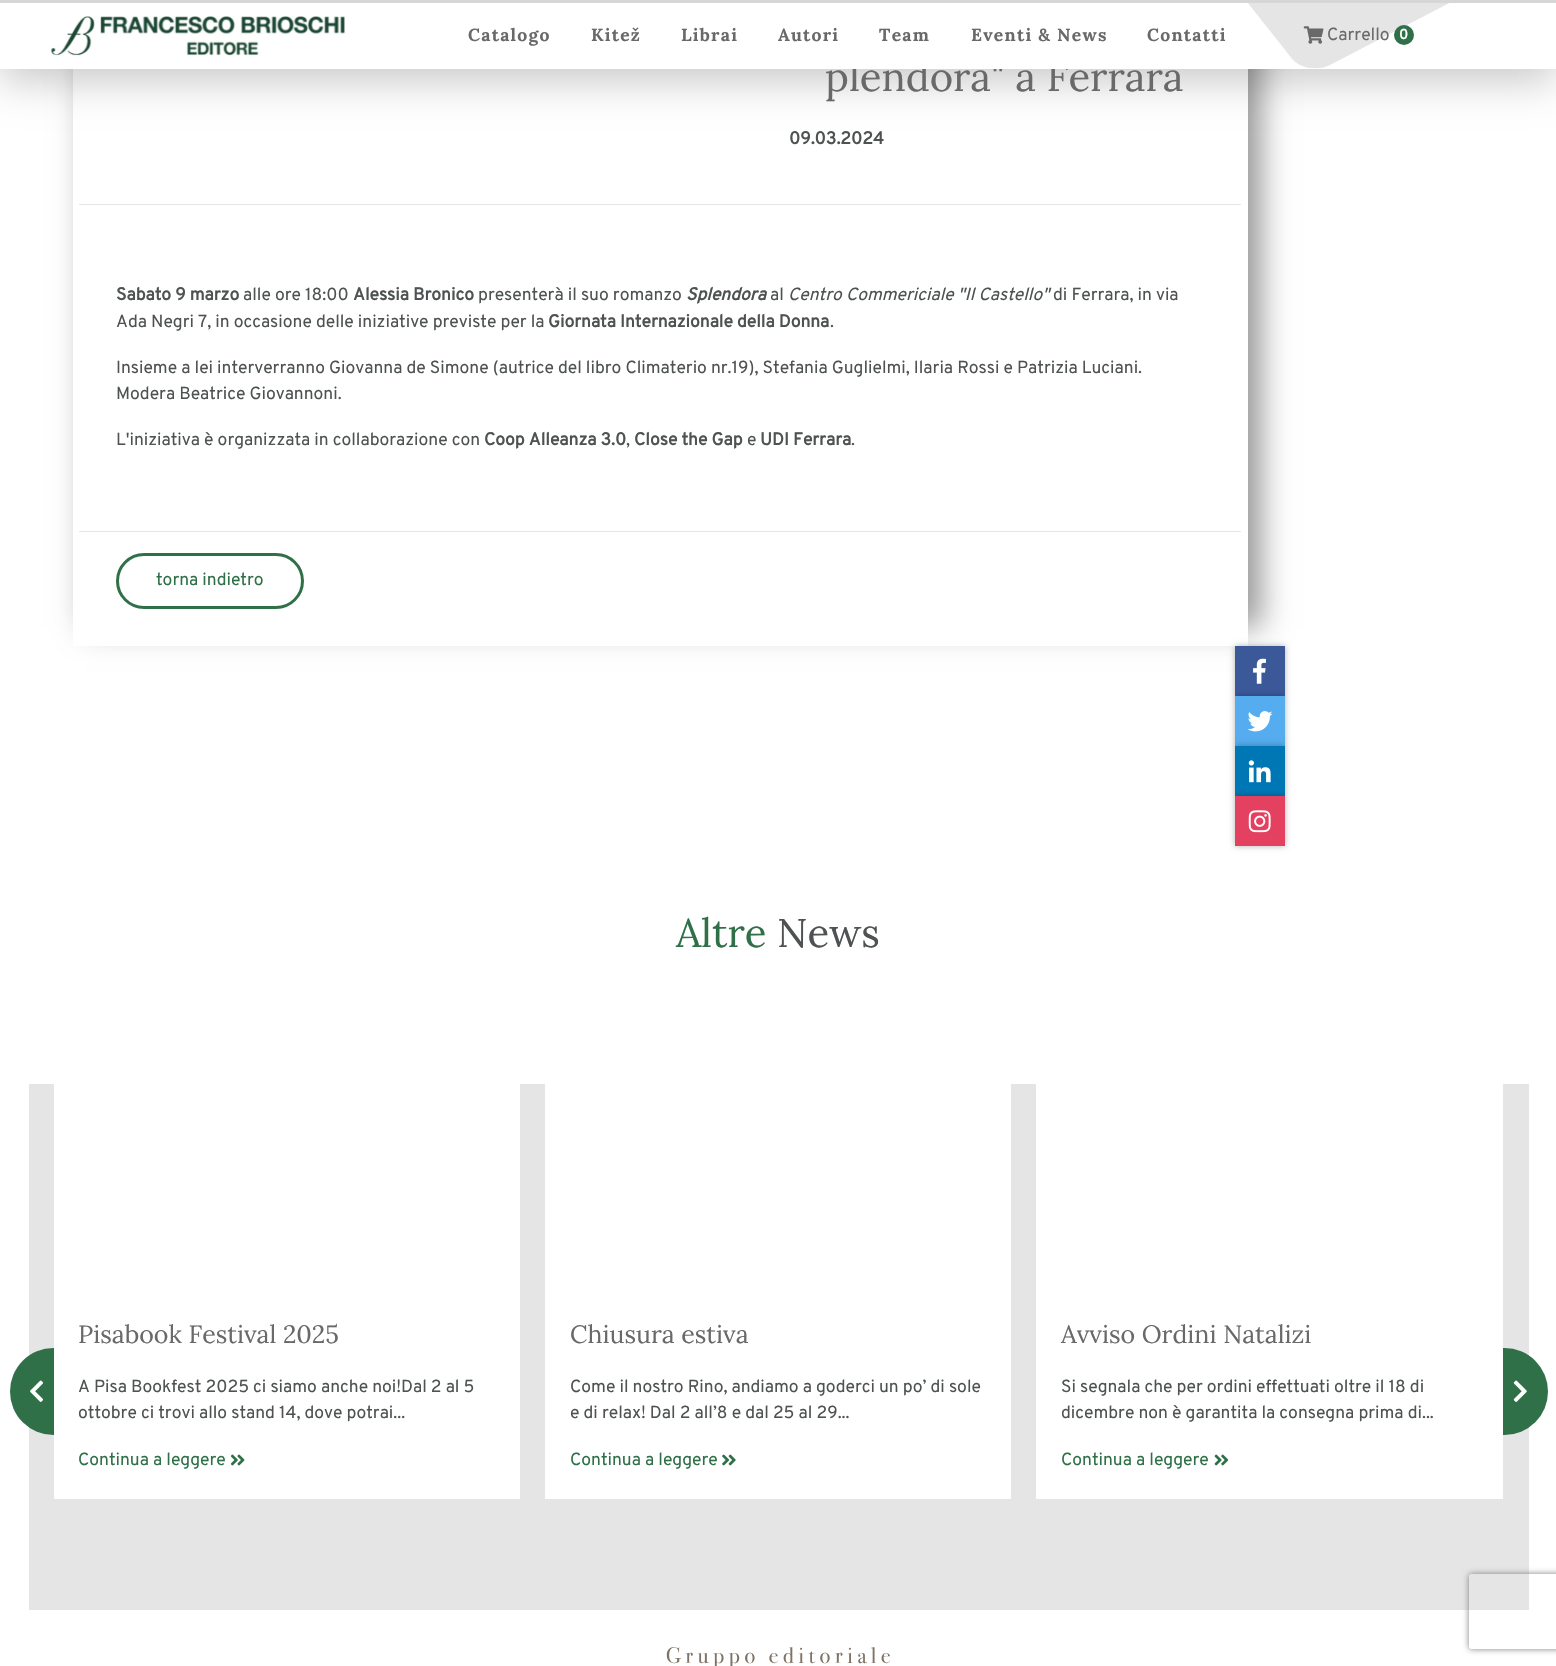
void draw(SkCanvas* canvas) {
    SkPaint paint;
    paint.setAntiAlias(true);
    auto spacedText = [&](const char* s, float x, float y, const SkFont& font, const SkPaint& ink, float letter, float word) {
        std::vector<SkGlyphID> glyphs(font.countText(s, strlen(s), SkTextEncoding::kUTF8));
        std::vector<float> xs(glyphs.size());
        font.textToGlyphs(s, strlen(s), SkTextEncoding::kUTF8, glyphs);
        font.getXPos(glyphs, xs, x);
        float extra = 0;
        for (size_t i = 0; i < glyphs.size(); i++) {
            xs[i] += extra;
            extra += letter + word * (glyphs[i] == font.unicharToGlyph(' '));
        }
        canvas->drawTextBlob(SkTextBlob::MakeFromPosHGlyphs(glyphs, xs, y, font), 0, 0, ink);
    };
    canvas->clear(0xFFFFFFFF);
    paint.setColor(0x69000000);
    paint.setMaskFilter(SkMaskFilter::MakeBlur(kNormal_SkBlurStyle, 14.5f));
    canvas->drawRect(SkRect::MakeXYWH(86, -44, 1175, 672), paint);
    paint.setMaskFilter(nullptr);
    paint.setColor(0xFFFFFFFF);
    canvas->drawRect(SkRect::MakeXYWH(73, 69, 1175, 577), paint);
    paint.setColor(0x36000000);
    paint.setMaskFilter(SkMaskFilter::MakeBlur(kNormal_SkBlurStyle, 20));
    canvas->drawRect(SkRect::MakeXYWH(0, 13, 1556, 68), paint);
    paint.setMaskFilter(nullptr);
    SkFont font1(fontMgr->matchFamilyStyle("Lora", SkFontStyle::Normal()), 40);
    font1.setSubpixel(true);
    paint.setColor(0xFF696969);
    canvas->drawString("plendora\" a Ferrara", 825, 91, font1, paint);
    paint.setColor(0xFFFFFFFF);
    canvas->drawRect(SkRect::MakeXYWH(0, 3, 1556, 66), paint);
    paint.setColor(0xFFD6D6D6);
    canvas->drawRect(SkRect::MakeXYWH(0, 0, 1556, 3), paint);
    canvas->drawImageRect(SkImages::DeferredFromEncodedData(SkData::MakeFromFileName("img1.png")), SkRect::MakeXYWH(51, 16, 294, 40), SkSamplingOptions());
    SkFont font2(fontMgr->matchFamilyStyle("Lora", SkFontStyle::Bold()), 17.5f);
    font2.setSubpixel(true);
    paint.setColor(0xFF696969);
    spacedText("Catalogo", 468, 41, font2, paint, 1.25f, 0);
    spacedText("Kitež", 591, 41, font2, paint, 1.25f, 0);
    spacedText("Librai", 681, 41, font2, paint, 1.25f, 0);
    spacedText("Autori", 778, 41, font2, paint, 1.25f, 0);
    spacedText("Team", 879, 41, font2, paint, 1.25f, 0);
    spacedText("Eventi & News", 971, 41, font2, paint, 1.25f, 0);
    spacedText("Contatti", 1147, 41, font2, paint, 1.25f, 0);
    canvas->drawImageRect(SkImages::DeferredFromEncodedData(SkData::MakeFromFileName("img2.png")), SkRect::MakeXYWH(1248, 3, 201, 66), SkSamplingOptions());
    canvas->drawImageRect(SkImages::DeferredFromEncodedData(SkData::MakeFromFileName("img3.png")), SkRect::MakeXYWH(1303, 26, 21, 18), SkSamplingOptions());
    SkFont font3(fontMgr->matchFamilyStyle("Overpass", SkFontStyle::Normal()), 17.5f);
    font3.setSubpixel(true);
    canvas->drawString("Carrello", 1327, 40, font3, paint);
    paint.setColor(0xFF2F7048);
    canvas->drawCircle(1404, 35, 10, paint);
    SkFont font4(fontMgr->matchFamilyStyle("Overpass", SkFontStyle::Bold()), 14);
    font4.setSubpixel(true);
    paint.setColor(0xFFFFFFFF);
    canvas->drawString("0", 1399, 39, font4, paint);
    SkFont font5(fontMgr->matchFamilyStyle("Overpass", SkFontStyle::Bold()), 17.5f);
    font5.setSubpixel(true);
    paint.setColor(0xFF4E5252);
    canvas->drawString("09.03.2024", 789, 144, font5, paint);
    paint.setColor(0xFFE6E6E6);
    canvas->drawRect(SkRect::MakeXYWH(79, 204, 1162, 1), paint);
    paint.setColor(0xFF4E5252);
    canvas->drawString("Sabato 9 marzo", 116, 300, font5, paint);
    canvas->drawString("alle ore 18:00", 243, 300, font3, paint);
    canvas->drawString("Alessia Bronico", 353, 300, font5, paint);
    canvas->drawString("presenterà il suo romanzo", 478, 300, font3, paint);
    SkFont font6(fontMgr->matchFamilyStyle("Overpass", SkFontStyle::BoldItalic()), 17.5f);
    font6.setSubpixel(true);
    canvas->drawString("Splendora", 686, 300, font6, paint);
    canvas->drawString("al", 770, 300, font3, paint);
    SkFont font7(fontMgr->matchFamilyStyle("Overpass", SkFontStyle::Italic()), 17.5f);
    font7.setSubpixel(true);
    canvas->drawString("Centro Commericiale \"Il Castello\"", 788, 300, font7, paint);
    canvas->drawString("di Ferrara, in via", 1053, 300, font3, paint);
    canvas->drawString("Ada Negri 7, in occasione delle iniziative previste per la", 116, 327, font3, paint);
    canvas->drawString("Giornata Internazionale della Donna", 548, 327, font5, paint);
    canvas->drawString(".", 830, 327, font3, paint);
    canvas->drawString("Insieme a lei interverranno Giovanna de Simone (autrice del libro Climaterio nr.19), Stefania Guglielmi, Ilaria Rossi e Patrizia Luciani.", 116, 373, font3, paint);
    canvas->drawString("Modera Beatrice Giovannoni.", 116, 399, font3, paint);
    canvas->drawString("L'iniziativa è organizzata in collaborazione con", 116, 445, font3, paint);
    canvas->drawString("Coop Alleanza 3.0", 484, 445, font5, paint);
    canvas->drawString(",", 626, 445, font3, paint);
    canvas->drawString("Close the Gap", 634, 445, font5, paint);
    canvas->drawString("e", 747, 445, font3, paint);
    canvas->drawString("UDI Ferrara", 760, 445, font5, paint);
    canvas->drawString(".", 851, 445, font3, paint);
    paint.setColor(0xFFE6E6E6);
    canvas->drawRect(SkRect::MakeXYWH(79, 531, 1162, 1), paint);
    paint.setStyle(SkPaint::kStroke_Style);
    paint.setStrokeWidth(3);
    paint.setColor(0xFF2F7048);
    canvas->drawRoundRect(SkRect::MakeXYWH(117.5f, 554.5f, 185, 53), 26.5f, 26.5f, paint);
    paint.setStyle(SkPaint::kFill_Style);
    canvas->drawString("torna indietro", 156, 585, font3, paint);
    paint.setColor(0x4D000000);
    paint.setMaskFilter(SkMaskFilter::MakeBlur(kNormal_SkBlurStyle, 3));
    canvas->drawRect(SkRect::MakeXYWH(1235, 646, 50, 50), paint);
    paint.setMaskFilter(nullptr);
    paint.setColor(0xFF3B5999);
    canvas->drawRect(SkRect::MakeXYWH(1235, 646, 50, 50), paint);
    canvas->drawImageRect(SkImages::DeferredFromEncodedData(SkData::MakeFromFileName("img4.png")), SkRect::MakeXYWH(1253, 658, 13, 26), SkSamplingOptions());
    paint.setColor(0x4D000000);
    paint.setMaskFilter(SkMaskFilter::MakeBlur(kNormal_SkBlurStyle, 3));
    canvas->drawRect(SkRect::MakeXYWH(1235, 696, 50, 50), paint);
    paint.setMaskFilter(nullptr);
    paint.setColor(0xFF55ACEE);
    canvas->drawRect(SkRect::MakeXYWH(1235, 696, 50, 50), paint);
    canvas->drawImageRect(SkImages::DeferredFromEncodedData(SkData::MakeFromFileName("img5.png")), SkRect::MakeXYWH(1247, 711, 26, 21), SkSamplingOptions());
    paint.setColor(0x4D000000);
    paint.setMaskFilter(SkMaskFilter::MakeBlur(kNormal_SkBlurStyle, 3));
    canvas->drawRect(SkRect::MakeXYWH(1235, 746, 50, 50), paint);
    paint.setMaskFilter(nullptr);
    paint.setColor(0xFF0077B5);
    canvas->drawRect(SkRect::MakeXYWH(1235, 746, 50, 50), paint);
    canvas->drawImageRect(SkImages::DeferredFromEncodedData(SkData::MakeFromFileName("img6.png")), SkRect::MakeXYWH(1248, 760, 23, 23), SkSamplingOptions());
    paint.setColor(0x4D000000);
    paint.setMaskFilter(SkMaskFilter::MakeBlur(kNormal_SkBlurStyle, 3));
    canvas->drawRect(SkRect::MakeXYWH(1235, 796, 50, 50), paint);
    paint.setMaskFilter(nullptr);
    paint.setColor(0xFFE4405F);
    canvas->drawRect(SkRect::MakeXYWH(1235, 796, 50, 50), paint);
    canvas->drawImageRect(SkImages::DeferredFromEncodedData(SkData::MakeFromFileName("img7.png")), SkRect::MakeXYWH(1248, 810, 23, 23), SkSamplingOptions());
    paint.setColor(0xFFE5E5E5);
    canvas->drawRect(SkRect::MakeXYWH(29, 1084, 1500, 526), paint);
    paint.setColor(0xFF2F7048);
    canvas->drawString("Altre", 676, 947, font1, paint);
    paint.setColor(0xFF4E5252);
    canvas->drawString("News", 777, 947, font1, paint);
    paint.setColor(0xFF2F7048);
    canvas->drawRoundRect(SkRect::MakeXYWH(10, 1348, 88, 87), 43.5f, 43.5f, paint);
    paint.setColor(0xFFFFFFFF);
    canvas->drawRect(SkRect::MakeXYWH(54, 1084, 466, 415), paint);
    SkFont font8(fontMgr->matchFamilyStyle("Lora", SkFontStyle::Normal()), 25);
    font8.setSubpixel(true);
    paint.setColor(0xFF696969);
    canvas->drawString("Pisabook Festival 2025", 78, 1343, font8, paint);
    paint.setColor(0xFF4E5252);
    canvas->drawString("A Pisa Bookfest 2025 ci siamo anche noi!Dal 2 al 5", 78, 1392, font3, paint);
    canvas->drawString("ottobre ci trovi allo stand 14, dove potrai...", 78, 1418, font3, paint);
    paint.setColor(0xFF2F7048);
    canvas->drawString("Continua a leggere", 78, 1465, font3, paint);
    canvas->drawImageRect(SkImages::DeferredFromEncodedData(SkData::MakeFromFileName("img8.png")), SkRect::MakeXYWH(230, 1454, 15, 12), SkSamplingOptions());
    paint.setColor(0xFFFFFFFF);
    canvas->drawRect(SkRect::MakeXYWH(545, 1084, 466, 415), paint);
    paint.setColor(0xFF696969);
    canvas->drawString("Chiusura estiva", 570, 1343, font8, paint);
    paint.setColor(0xFF4E5252);
    canvas->drawString("Come il nostro Rino, andiamo a goderci un po’ di sole", 570, 1392, font3, paint);
    canvas->drawString("e di relax! Dal 2 all’8 e dal 25 al 29...", 570, 1418, font3, paint);
    paint.setColor(0xFF2F7048);
    canvas->drawString("Continua a leggere", 570, 1465, font3, paint);
    canvas->drawImageRect(SkImages::DeferredFromEncodedData(SkData::MakeFromFileName("img9.png")), SkRect::MakeXYWH(722, 1454, 14, 12), SkSamplingOptions());
    canvas->drawRoundRect(SkRect::MakeXYWH(1460, 1348, 88, 87), 43.5f, 43.5f, paint);
    paint.setColor(0xFFFFFFFF);
    canvas->drawRect(SkRect::MakeXYWH(1036, 1084, 467, 415), paint);
    paint.setColor(0xFF696969);
    canvas->drawString("Avviso Ordini Natalizi", 1061, 1343, font8, paint);
    paint.setColor(0xFF4E5252);
    canvas->drawString("Si segnala che per ordini effettuati oltre il 18 di", 1061, 1392, font3, paint);
    canvas->drawString("dicembre non è garantita la consegna prima di...", 1061, 1418, font3, paint);
    paint.setColor(0xFF2F7048);
    canvas->drawString("Continua a leggere", 1061, 1465, font3, paint);
    canvas->drawImageRect(SkImages::DeferredFromEncodedData(SkData::MakeFromFileName("img10.png")), SkRect::MakeXYWH(1214, 1454, 15, 12), SkSamplingOptions());
    canvas->drawImageRect(SkImages::DeferredFromEncodedData(SkData::MakeFromFileName("img11.png")), SkRect::MakeXYWH(30, 1380, 13, 22), SkSamplingOptions());
    canvas->drawImageRect(SkImages::DeferredFromEncodedData(SkData::MakeFromFileName("img12.png")), SkRect::MakeXYWH(1513, 1380, 14, 22), SkSamplingOptions());
    canvas->drawImageRect(SkImages::DeferredFromEncodedData(SkData::MakeFromFileName("img13.png")), SkRect::MakeXYWH(666, 1647, 224, 19), SkSamplingOptions());
    canvas->save();
    canvas->clipPath(SkPathBuilder(SkPathFillType::kEvenOdd).moveTo(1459, 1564).lineTo(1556, 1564).lineTo(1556, 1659).lineTo(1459, 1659).close().moveTo(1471.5f, 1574).lineTo(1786.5f, 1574).cubicTo(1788, 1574, 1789, 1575, 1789, 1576.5f).lineTo(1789, 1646.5f).cubicTo(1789, 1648, 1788, 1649, 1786.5f, 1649).lineTo(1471.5f, 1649).cubicTo(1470, 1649, 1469, 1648, 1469, 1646.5f).lineTo(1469, 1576.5f).cubicTo(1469, 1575, 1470, 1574, 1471.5f, 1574).close().detach(), true);
    paint.setColor(0xFF808080);
    paint.setMaskFilter(SkMaskFilter::MakeBlur(kNormal_SkBlurStyle, 3));
    canvas->drawRoundRect(SkRect::MakeXYWH(1469, 1574, 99, 75), 2.5f, 2.5f, paint);
    paint.setMaskFilter(nullptr);
    canvas->restore();
}
